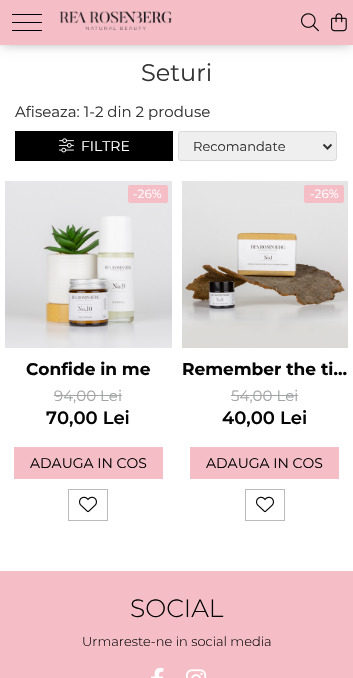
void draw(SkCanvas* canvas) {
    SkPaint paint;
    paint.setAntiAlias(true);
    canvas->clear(0xFFFFFFFF);
    paint.setColor(0xFFA2A2A2);
    paint.setMaskFilter(SkMaskFilter::MakeBlur(kNormal_SkBlurStyle, 6));
    canvas->drawRect(SkRect::MakeXYWH(2, 2, 349, 41), paint);
    paint.setMaskFilter(nullptr);
    paint.setColor(0xFFF5BEC7);
    canvas->drawRect(SkRect::MakeXYWH(0, 0, 353, 45), paint);
    paint.setColor(0xFF000000);
    canvas->drawRect(SkRect::MakeXYWH(12, 22, 30, 1), paint);
    canvas->drawRect(SkRect::MakeXYWH(12, 14, 30, 1), paint);
    canvas->drawRect(SkRect::MakeXYWH(12, 30, 30, 1), paint);
    canvas->drawImageRect(SkImages::DeferredFromEncodedData(SkData::MakeFromFileName("img1.png")), SkRect::MakeXYWH(60, 11, 112, 19), SkSamplingOptions());
    canvas->drawImageRect(SkImages::DeferredFromEncodedData(SkData::MakeFromFileName("img2.png")), SkRect::MakeXYWH(301, 13, 18, 19), SkSamplingOptions());
    canvas->drawImageRect(SkImages::DeferredFromEncodedData(SkData::MakeFromFileName("img3.png")), SkRect::MakeXYWH(331, 13, 16, 19), SkSamplingOptions());
    SkFont font1(fontMgr->matchFamilyStyle("Montserrat", SkFontStyle::Normal()), 24);
    font1.setSubpixel(true);
    paint.setColor(0xFF333333);
    canvas->drawString("Seturi", 141, 81, font1, paint);
    SkFont font2(fontMgr->matchFamilyStyle("Montserrat", SkFontStyle::Normal()), 15);
    font2.setSubpixel(true);
    canvas->drawString("Afiseaza: 1-2 din 2 produse", 15, 117, font2, paint);
    paint.setColor(0xFF000000);
    canvas->drawRect(SkRect::MakeXYWH(15, 131, 158, 30), paint);
    canvas->drawImageRect(SkImages::DeferredFromEncodedData(SkData::MakeFromFileName("img4.png")), SkRect::MakeXYWH(59, 138, 15, 15), SkSamplingOptions());
    SkFont font3(fontMgr->matchFamilyStyle("Montserrat", SkFontStyle::Normal()), 14);
    font3.setSubpixel(true);
    paint.setColor(0xFFFFFFFF);
    canvas->drawString("FILTRE", 81, 151, font3, paint);
    paint.setColor(0xFFEFEFEF);
    canvas->drawRoundRect(SkRect::MakeXYWH(178.5f, 131.5f, 158, 29), 2.5f, 2.5f, paint);
    paint.setStyle(SkPaint::kStroke_Style);
    paint.setStrokeWidth(1);
    paint.setColor(0xFFDBDBDB);
    canvas->drawRoundRect(SkRect::MakeXYWH(178.5f, 131.5f, 158, 29), 2.5f, 2.5f, paint);
    paint.setStrokeWidth(2);
    paint.setColor(0xFF333333);
    canvas->drawPath(SkPathBuilder().moveTo(323.5f, 144.5f).lineTo(327.5f, 148.5f).lineTo(331.5f, 144.5f).detach(), paint);
    SkFont font4(fontMgr->matchFamilyStyle("Montserrat", SkFontStyle::Normal()), 13);
    font4.setSubpixel(true);
    paint.setStyle(SkPaint::kFill_Style);
    canvas->drawString("Recomandate", 193, 151, font4, paint);
    canvas->drawImageRect(SkImages::DeferredFromEncodedData(SkData::MakeFromFileName("img5.png")), SkRect::MakeXYWH(5, 181, 167, 167), SkSamplingOptions());
    paint.setColor(0xFFF5BEC7);
    canvas->drawRoundRect(SkRect::MakeXYWH(128, 185, 40, 18), 2, 2, paint);
    SkFont font5(fontMgr->matchFamilyStyle("Montserrat", SkFontStyle::Normal()), 12);
    font5.setSubpixel(true);
    paint.setColor(0xFFFFFFFF);
    canvas->drawString("-26%", 133, 198, font5, paint);
    SkFont font6(fontMgr->matchFamilyStyle("Montserrat", SkFontStyle::Bold()), 17);
    font6.setSubpixel(true);
    paint.setColor(0xFF050505);
    canvas->drawString("Confide in me", 26, 375, font6, paint);
    paint.setColor(0xFFA3A5A7);
    canvas->drawString("94,00 Lei", 54, 401, font2, paint);
    canvas->drawRect(SkRect::MakeXYWH(54, 395, 68, 1), paint);
    SkFont font7(fontMgr->matchFamilyStyle("Montserrat", SkFontStyle(600, SkFontStyle::kNormal_Width, SkFontStyle::kUpright_Slant)), 18);
    font7.setSubpixel(true);
    paint.setColor(0xFF050505);
    canvas->drawString("70,00 Lei", 46, 424, font7, paint);
    paint.setColor(0xFFF5BEC7);
    canvas->drawRect(SkRect::MakeXYWH(14, 447, 149, 32), paint);
    paint.setColor(0xFF050505);
    canvas->drawString("ADAUGA IN COS", 30, 468, font3, paint);
    paint.setStyle(SkPaint::kStroke_Style);
    paint.setStrokeWidth(1);
    paint.setColor(0xFFBBBBBB);
    canvas->drawRect(SkRect::MakeXYWH(68.5f, 489.5f, 39, 31), paint);
    canvas->drawImageRect(SkImages::DeferredFromEncodedData(SkData::MakeFromFileName("img6.png")), SkRect::MakeXYWH(79, 496, 18, 17), SkSamplingOptions());
    canvas->drawImageRect(SkImages::DeferredFromEncodedData(SkData::MakeFromFileName("img7.png")), SkRect::MakeXYWH(182, 181, 166, 167), SkSamplingOptions());
    paint.setStyle(SkPaint::kFill_Style);
    paint.setColor(0xFFF5BEC7);
    canvas->drawRoundRect(SkRect::MakeXYWH(304, 185, 40, 18), 2, 2, paint);
    paint.setColor(0xFFFFFFFF);
    canvas->drawString("-26%", 310, 198, font5, paint);
    paint.setColor(0xFF050505);
    canvas->drawString("Remember the ti…", 182, 375, font6, paint);
    paint.setColor(0xFFA3A5A7);
    canvas->drawString("54,00 Lei", 231, 401, font2, paint);
    canvas->drawRect(SkRect::MakeXYWH(231, 395, 67, 1), paint);
    paint.setColor(0xFF050505);
    canvas->drawString("40,00 Lei", 222, 424, font7, paint);
    paint.setColor(0xFFF5BEC7);
    canvas->drawRect(SkRect::MakeXYWH(190, 447, 149, 32), paint);
    paint.setColor(0xFF050505);
    canvas->drawString("ADAUGA IN COS", 206, 468, font3, paint);
    paint.setStyle(SkPaint::kStroke_Style);
    paint.setColor(0xFFBBBBBB);
    canvas->drawRect(SkRect::MakeXYWH(245.5f, 489.5f, 39, 31), paint);
    canvas->drawImageRect(SkImages::DeferredFromEncodedData(SkData::MakeFromFileName("img6.png")), SkRect::MakeXYWH(256, 496, 18, 17), SkSamplingOptions());
    paint.setStyle(SkPaint::kFill_Style);
    paint.setColor(0xFFF5BEC7);
    canvas->drawRect(SkRect::MakeXYWH(0, 571, 353, 107), paint);
    SkFont font8(fontMgr->matchFamilyStyle("Montserrat", SkFontStyle(300, SkFontStyle::kNormal_Width, SkFontStyle::kUpright_Slant)), 25);
    font8.setSubpixel(true);
    paint.setColor(0xFF050505);
    canvas->drawString("SOCIAL", 130, 617, font8, paint);
    SkFont font9(fontMgr->matchFamilyStyle("Montserrat", SkFontStyle(300, SkFontStyle::kNormal_Width, SkFontStyle::kUpright_Slant)), 13);
    font9.setSubpixel(true);
    canvas->drawString("Urmareste-ne in social media", 82, 646, font9, paint);
    canvas->drawImageRect(SkImages::DeferredFromEncodedData(SkData::MakeFromFileName("img8.png")), SkRect::MakeXYWH(151, 667, 13, 11), SkSamplingOptions());
    canvas->drawImageRect(SkImages::DeferredFromEncodedData(SkData::MakeFromFileName("img9.png")), SkRect::MakeXYWH(186, 669, 21, 9), SkSamplingOptions());
}
